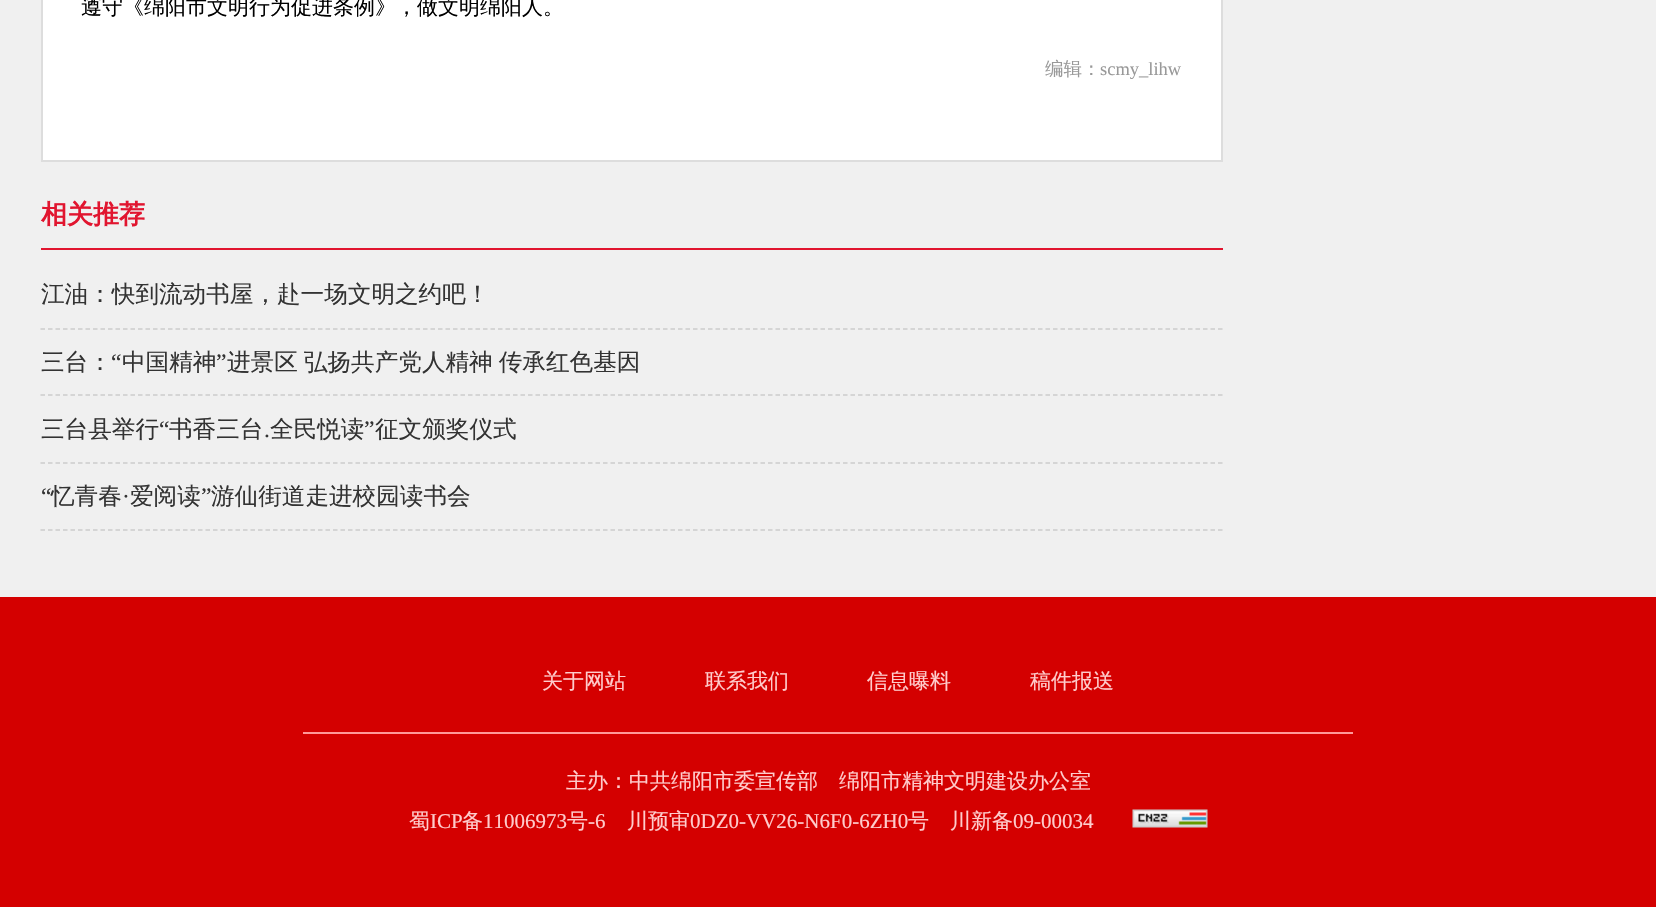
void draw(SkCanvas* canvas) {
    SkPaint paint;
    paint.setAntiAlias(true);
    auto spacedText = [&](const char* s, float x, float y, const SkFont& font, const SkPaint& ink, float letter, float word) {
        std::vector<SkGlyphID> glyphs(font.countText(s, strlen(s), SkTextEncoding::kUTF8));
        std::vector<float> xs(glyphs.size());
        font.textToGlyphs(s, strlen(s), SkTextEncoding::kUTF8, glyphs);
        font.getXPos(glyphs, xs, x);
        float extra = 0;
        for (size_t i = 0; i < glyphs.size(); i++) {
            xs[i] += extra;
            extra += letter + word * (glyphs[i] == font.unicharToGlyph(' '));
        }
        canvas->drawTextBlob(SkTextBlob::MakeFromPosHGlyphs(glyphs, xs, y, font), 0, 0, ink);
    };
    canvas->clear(0xFFF0F0F0);
    paint.setColor(0xFFFFFFFF);
    canvas->drawRect(SkRect::MakeXYWH(42, -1, 1180, 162), paint);
    paint.setStyle(SkPaint::kStroke_Style);
    paint.setStrokeWidth(2);
    paint.setColor(0xFFDDDDDD);
    canvas->drawRect(SkRect::MakeXYWH(42, -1, 1180, 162), paint);
    SkFont font1(fontMgr->matchFamilyStyle("WenQuanYi Zen Hei", SkFontStyle(500, SkFontStyle::kNormal_Width, SkFontStyle::kUpright_Slant)), 21);
    font1.setSubpixel(true);
    paint.setStyle(SkPaint::kFill_Style);
    paint.setColor(0xFF000000);
    canvas->drawString("遵守《绵阳市文明行为促进条例》，做文明绵阳人。", 81, 14, font1, paint);
    SkFont font2(fontMgr->matchFamilyStyle("WenQuanYi Zen Hei", SkFontStyle(500, SkFontStyle::kNormal_Width, SkFontStyle::kUpright_Slant)), 18.5f);
    font2.setSubpixel(true);
    paint.setColor(0xFF999999);
    canvas->drawString("编辑：", 1045, 75, font2, paint);
    SkFont font3(fontMgr->matchFamilyStyle("Liberation Serif", SkFontStyle::Normal()), 18.5f);
    font3.setSubpixel(true);
    canvas->drawString("scmy_lihw", 1100, 75, font3, paint);
    paint.setColor(0xFFE1152F);
    canvas->drawRect(SkRect::MakeXYWH(41, 248, 1182, 2), paint);
    SkFont font4(fontMgr->matchFamilyStyle("WenQuanYi Zen Hei", SkFontStyle::Bold()), 26);
    font4.setSubpixel(true);
    canvas->drawString("相关推荐", 41, 223, font4, paint);
    paint.setStyle(SkPaint::kStroke_Style);
    paint.setStrokeWidth(1.5f);
    paint.setColor(0xFFCCCCCC);
    paint.setPathEffect(SkDashPathEffect::Make({{4.5f, 3}}, 0));
    canvas->drawPath(SkPathBuilder().moveTo(40.5f, 329).lineTo(1222.5f, 329).detach(), paint);
    paint.setPathEffect(nullptr);
    SkFont font5(fontMgr->matchFamilyStyle("WenQuanYi Zen Hei", SkFontStyle(500, SkFontStyle::kNormal_Width, SkFontStyle::kUpright_Slant)), 23.6f);
    font5.setSubpixel(true);
    paint.setStyle(SkPaint::kFill_Style);
    paint.setColor(0xFF333333);
    canvas->drawString("江油：快到流动书屋，赴一场文明之约吧！", 41, 302, font5, paint);
    paint.setStyle(SkPaint::kStroke_Style);
    paint.setColor(0xFFCCCCCC);
    paint.setPathEffect(SkDashPathEffect::Make({{4.5f, 3}}, 0));
    canvas->drawPath(SkPathBuilder().moveTo(40.5f, 395).lineTo(1222.5f, 395).detach(), paint);
    paint.setPathEffect(nullptr);
    paint.setStyle(SkPaint::kFill_Style);
    paint.setColor(0xFF333333);
    canvas->drawString("三台：", 41, 370, font5, paint);
    SkFont font6(fontMgr->matchFamilyStyle("Liberation Serif", SkFontStyle::Normal()), 23.6f);
    font6.setSubpixel(true);
    canvas->drawString("“", 111, 370, font6, paint);
    canvas->drawString("中国精神", 122, 370, font5, paint);
    canvas->drawString("”", 216, 370, font6, paint);
    spacedText("进景区 弘扬共产党人精神 传承红色基因", 227, 370, font5, paint, 0, -1);
    paint.setStyle(SkPaint::kStroke_Style);
    paint.setColor(0xFFCCCCCC);
    paint.setPathEffect(SkDashPathEffect::Make({{4.5f, 3}}, 0));
    canvas->drawPath(SkPathBuilder().moveTo(40.5f, 463).lineTo(1222.5f, 463).detach(), paint);
    paint.setPathEffect(nullptr);
    paint.setStyle(SkPaint::kFill_Style);
    paint.setColor(0xFF333333);
    canvas->drawString("三台县举行", 41, 437, font5, paint);
    canvas->drawString("“", 159, 437, font6, paint);
    canvas->drawString("书香三台", 169, 437, font5, paint);
    canvas->drawString("全民悦读", 270, 437, font5, paint);
    canvas->drawString("”", 364, 437, font6, paint);
    canvas->drawString("征文颁奖仪式", 375, 437, font5, paint);
    canvas->drawString(".", 264, 437, font6, paint);
    paint.setStyle(SkPaint::kStroke_Style);
    paint.setColor(0xFFCCCCCC);
    paint.setPathEffect(SkDashPathEffect::Make({{4.5f, 3}}, 0));
    canvas->drawPath(SkPathBuilder().moveTo(40.5f, 530).lineTo(1222.5f, 530).detach(), paint);
    paint.setPathEffect(nullptr);
    paint.setStyle(SkPaint::kFill_Style);
    paint.setColor(0xFF333333);
    canvas->drawString("“", 41, 504, font6, paint);
    canvas->drawString("忆青春", 51, 504, font5, paint);
    canvas->drawString("爱阅读", 130, 504, font5, paint);
    canvas->drawString("”", 201, 504, font6, paint);
    canvas->drawString("游仙街道走进校园读书会", 211, 504, font5, paint);
    canvas->drawString("·", 122, 504, font6, paint);
    paint.setColor(0xFFD40000);
    canvas->drawRect(SkRect::MakeXYWH(0, 597, 1656, 310), paint);
    paint.setColor(0xFFFFCCCC);
    canvas->drawString("关于网站", 542, 688, font1, paint);
    canvas->drawString("联系我们", 705, 688, font1, paint);
    canvas->drawString("信息曝料", 867, 688, font1, paint);
    canvas->drawString("稿件报送", 1030, 688, font1, paint);
    paint.setColor(0xFFFF9999);
    canvas->drawRect(SkRect::MakeXYWH(303, 732, 1050, 2), paint);
    paint.setColor(0xFFFFCCCC);
    canvas->drawString("主办：中共绵阳市委宣传部　绵阳市精神文明建设办公室", 566, 788, font1, paint);
    canvas->drawString("蜀", 409, 828, font1, paint);
    SkFont font7(fontMgr->matchFamilyStyle("Liberation Serif", SkFontStyle::Normal()), 21);
    font7.setSubpixel(true);
    canvas->drawString("ICP", 430, 828, font7, paint);
    canvas->drawString("备", 462, 828, font1, paint);
    canvas->drawString("11006973", 483, 828, font7, paint);
    canvas->drawString("号", 567, 828, font1, paint);
    canvas->drawString("-6", 588, 828, font7, paint);
    canvas->drawString("川预审", 627, 828, font1, paint);
    canvas->drawString("0DZ0-VV26-N6F0-6ZH0", 690, 828, font7, paint);
    canvas->drawString("号　川新备", 908, 828, font1, paint);
    canvas->drawString("09-00034", 1013, 828, font7, paint);
    canvas->drawImageRect(SkImages::DeferredFromEncodedData(SkData::MakeFromFileName("img1.png")), SkRect::MakeXYWH(1132, 809, 76, 19), SkSamplingOptions());
}
